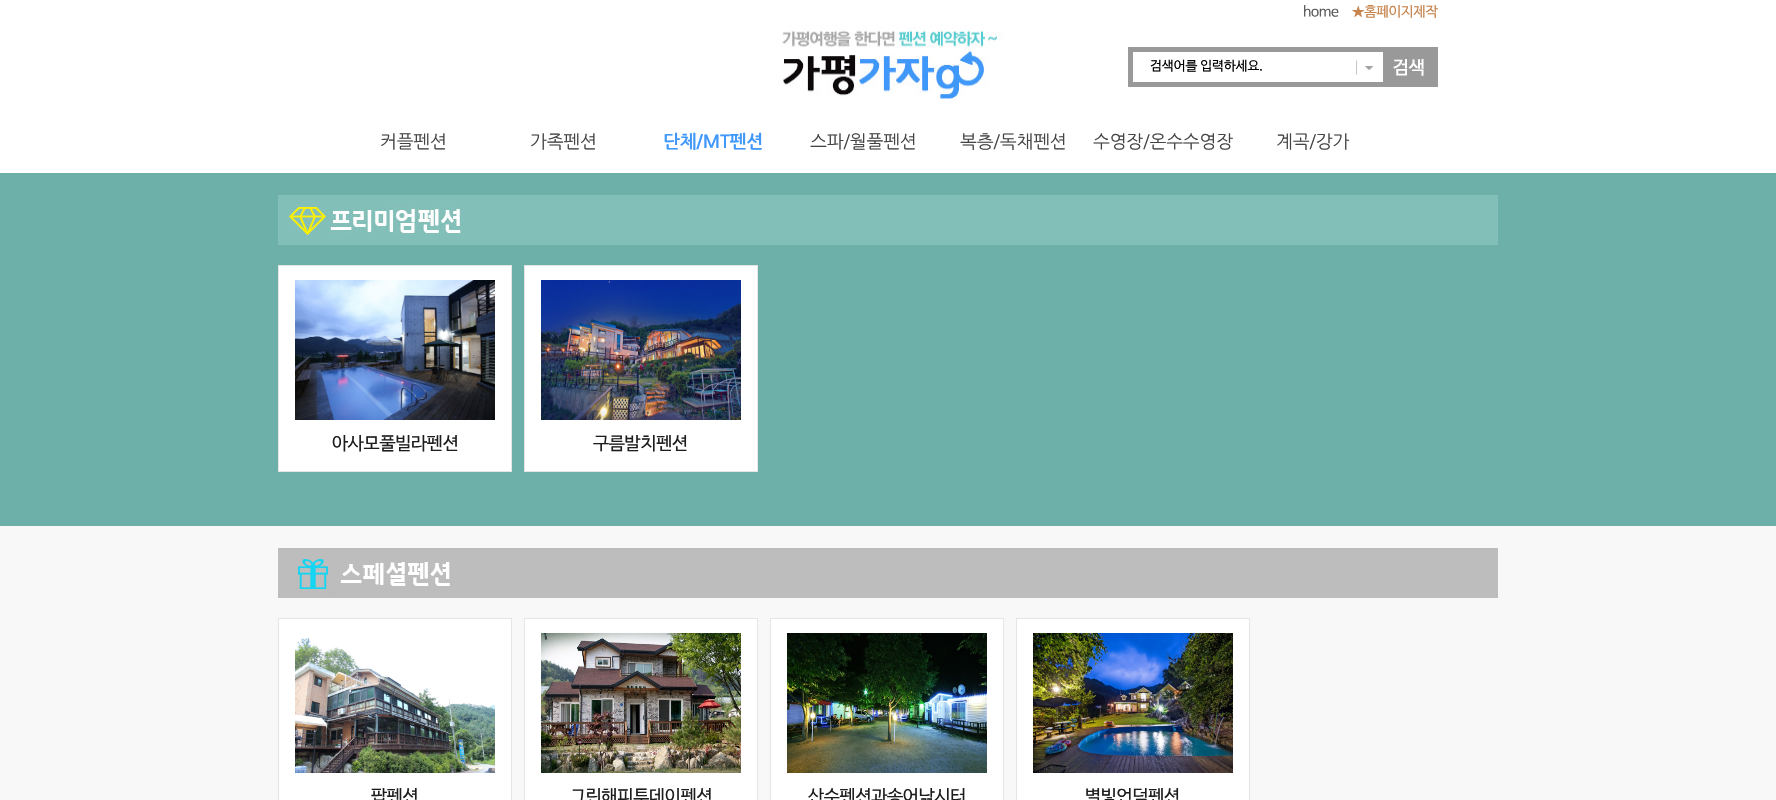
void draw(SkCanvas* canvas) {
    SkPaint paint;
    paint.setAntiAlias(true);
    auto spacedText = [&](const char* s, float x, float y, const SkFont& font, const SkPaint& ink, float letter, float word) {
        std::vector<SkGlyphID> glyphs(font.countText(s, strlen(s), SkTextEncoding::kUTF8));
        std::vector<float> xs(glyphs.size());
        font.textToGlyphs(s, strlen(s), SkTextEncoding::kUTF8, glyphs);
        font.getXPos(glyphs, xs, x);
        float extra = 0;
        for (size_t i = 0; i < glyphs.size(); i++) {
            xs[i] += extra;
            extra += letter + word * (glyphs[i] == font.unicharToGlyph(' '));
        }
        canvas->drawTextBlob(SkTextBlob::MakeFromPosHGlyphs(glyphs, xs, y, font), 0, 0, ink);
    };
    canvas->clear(0xFFFFFFFF);
    SkFont font1(fontMgr->matchFamilyStyle("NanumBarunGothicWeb", SkFontStyle::Normal()), 14);
    font1.setSubpixel(true);
    paint.setColor(0xFF595959);
    spacedText("home", 1303, 16, font1, paint, -0.25f, 0);
    paint.setColor(0xFFC7844D);
    spacedText("★홈페이지제작", 1352, 16, font1, paint, -0.25f, 0);
    canvas->drawImageRect(SkImages::DeferredFromEncodedData(SkData::MakeFromFileName("img1.png")), SkRect::MakeXYWH(782, 24, 222, 75), SkSamplingOptions());
    paint.setColor(0xFF999999);
    canvas->drawRect(SkRect::MakeXYWH(1128, 47, 310, 40), paint);
    paint.setColor(0xFFFFFFFF);
    canvas->drawRect(SkRect::MakeXYWH(1133, 52, 250, 30), paint);
    SkFont font2(fontMgr->matchFamilyStyle("NanumBarunGothicWeb", SkFontStyle::Normal()), 13.25f);
    font2.setSubpixel(true);
    paint.setColor(0xFF000000);
    canvas->drawString("검색어를 입력하세요.", 1150, 70, font2, paint);
    canvas->drawImageRect(SkImages::DeferredFromEncodedData(SkData::MakeFromFileName("img2.png")), SkRect::MakeXYWH(1356, 60, 18, 15), SkSamplingOptions());
    canvas->drawImageRect(SkImages::DeferredFromEncodedData(SkData::MakeFromFileName("img3.png")), SkRect::MakeXYWH(1392, 53, 38, 24), SkSamplingOptions());
    SkFont font3(fontMgr->matchFamilyStyle("NanumGothic", SkFontStyle::Normal()), 18);
    font3.setSubpixel(true);
    paint.setColor(0xFF444444);
    spacedText("커플펜션", 380, 148, font3, paint, -0.25f, 0);
    spacedText("가족펜션", 530, 148, font3, paint, -0.25f, 0);
    SkFont font4(fontMgr->matchFamilyStyle("NanumGothic", SkFontStyle::Bold()), 18);
    font4.setSubpixel(true);
    paint.setColor(0xFF4098FA);
    spacedText("단체/MT펜션", 663, 148, font4, paint, -0.25f, 0);
    paint.setColor(0xFF444444);
    spacedText("스파/월풀펜션", 810, 148, font3, paint, -0.25f, 0);
    spacedText("복층/독채펜션", 960, 148, font3, paint, -0.25f, 0);
    spacedText("수영장/온수수영장", 1093, 148, font3, paint, -0.25f, 0);
    spacedText("계곡/강가", 1276, 148, font3, paint, -0.25f, 0);
    paint.setColor(0xFF6CB0A9);
    canvas->drawRect(SkRect::MakeXYWH(0, 173, 1776, 353), paint);
    paint.setColor(0xFF83BFB9);
    canvas->drawRect(SkRect::MakeXYWH(278, 195, 1220, 50), paint);
    canvas->drawImageRect(SkImages::DeferredFromEncodedData(SkData::MakeFromFileName("img4.png")), SkRect::MakeXYWH(286, 203, 176, 32), SkSamplingOptions());
    paint.setStyle(SkPaint::kStroke_Style);
    paint.setStrokeWidth(1);
    paint.setColor(0xFFE5E5E5);
    canvas->drawRect(SkRect::MakeXYWH(278.5f, 265.5f, 233, 206), paint);
    paint.setStyle(SkPaint::kFill_Style);
    paint.setColor(0xFFFFFFFF);
    canvas->drawRect(SkRect::MakeXYWH(279, 266, 232, 205), paint);
    canvas->drawImageRect(SkImages::DeferredFromEncodedData(SkData::MakeFromFileName("img5.png")), SkRect::MakeXYWH(295, 280, 200, 140), SkSamplingOptions());
    SkFont font5(fontMgr->matchFamilyStyle("NanumBarunGothicWeb", SkFontStyle::Normal()), 18);
    font5.setSubpixel(true);
    paint.setColor(0xFF1D1D1D);
    spacedText("아사모풀빌라펜션", 332, 449, font5, paint, -0.25f, 0);
    paint.setStyle(SkPaint::kStroke_Style);
    paint.setColor(0xFFE5E5E5);
    canvas->drawRect(SkRect::MakeXYWH(524.5f, 265.5f, 233, 206), paint);
    paint.setStyle(SkPaint::kFill_Style);
    paint.setColor(0xFFFFFFFF);
    canvas->drawRect(SkRect::MakeXYWH(525, 266, 232, 205), paint);
    canvas->drawImageRect(SkImages::DeferredFromEncodedData(SkData::MakeFromFileName("img6.png")), SkRect::MakeXYWH(541, 280, 200, 140), SkSamplingOptions());
    paint.setColor(0xFF1D1D1D);
    spacedText("구름발치펜션", 593, 449, font5, paint, -0.25f, 0);
    paint.setColor(0xFFF8F8F8);
    canvas->drawRect(SkRect::MakeXYWH(0, 526, 1776, 274), paint);
    paint.setColor(0xFFBDBDBD);
    canvas->drawRect(SkRect::MakeXYWH(278, 548, 1220, 50), paint);
    canvas->drawImageRect(SkImages::DeferredFromEncodedData(SkData::MakeFromFileName("img7.png")), SkRect::MakeXYWH(294, 556, 157, 40), SkSamplingOptions());
    paint.setStyle(SkPaint::kStroke_Style);
    paint.setColor(0xFFE5E5E5);
    canvas->drawRect(SkRect::MakeXYWH(278.5f, 618.5f, 233, 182), paint);
    paint.setStyle(SkPaint::kFill_Style);
    paint.setColor(0xFFFFFFFF);
    canvas->drawRect(SkRect::MakeXYWH(279, 619, 232, 181), paint);
    canvas->drawImageRect(SkImages::DeferredFromEncodedData(SkData::MakeFromFileName("img8.png")), SkRect::MakeXYWH(295, 637, 200, 136), SkSamplingOptions());
    paint.setColor(0xFF1D1D1D);
    spacedText("팝펜션", 371, 802, font5, paint, -0.25f, 0);
    paint.setStyle(SkPaint::kStroke_Style);
    paint.setColor(0xFFE5E5E5);
    canvas->drawRect(SkRect::MakeXYWH(524.5f, 618.5f, 233, 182), paint);
    paint.setStyle(SkPaint::kFill_Style);
    paint.setColor(0xFFFFFFFF);
    canvas->drawRect(SkRect::MakeXYWH(525, 619, 232, 181), paint);
    canvas->drawImageRect(SkImages::DeferredFromEncodedData(SkData::MakeFromFileName("img9.png")), SkRect::MakeXYWH(541, 633, 200, 140), SkSamplingOptions());
    paint.setColor(0xFF1D1D1D);
    spacedText("그린해피투데이펜션", 570, 802, font5, paint, -0.25f, 0);
    paint.setStyle(SkPaint::kStroke_Style);
    paint.setColor(0xFFE5E5E5);
    canvas->drawRect(SkRect::MakeXYWH(770.5f, 618.5f, 233, 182), paint);
    paint.setStyle(SkPaint::kFill_Style);
    paint.setColor(0xFFFFFFFF);
    canvas->drawRect(SkRect::MakeXYWH(771, 619, 232, 181), paint);
    canvas->drawImageRect(SkImages::DeferredFromEncodedData(SkData::MakeFromFileName("img10.png")), SkRect::MakeXYWH(787, 633, 200, 140), SkSamplingOptions());
    paint.setColor(0xFF1D1D1D);
    spacedText("산수펜션과송어낚시터", 808, 802, font5, paint, -0.25f, 0);
    paint.setStyle(SkPaint::kStroke_Style);
    paint.setColor(0xFFE5E5E5);
    canvas->drawRect(SkRect::MakeXYWH(1016.5f, 618.5f, 233, 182), paint);
    paint.setStyle(SkPaint::kFill_Style);
    paint.setColor(0xFFFFFFFF);
    canvas->drawRect(SkRect::MakeXYWH(1017, 619, 232, 181), paint);
    canvas->drawImageRect(SkImages::DeferredFromEncodedData(SkData::MakeFromFileName("img11.png")), SkRect::MakeXYWH(1033, 633, 200, 140), SkSamplingOptions());
    paint.setColor(0xFF1D1D1D);
    spacedText("별빛언덕펜션", 1085, 802, font5, paint, -0.25f, 0);
}
